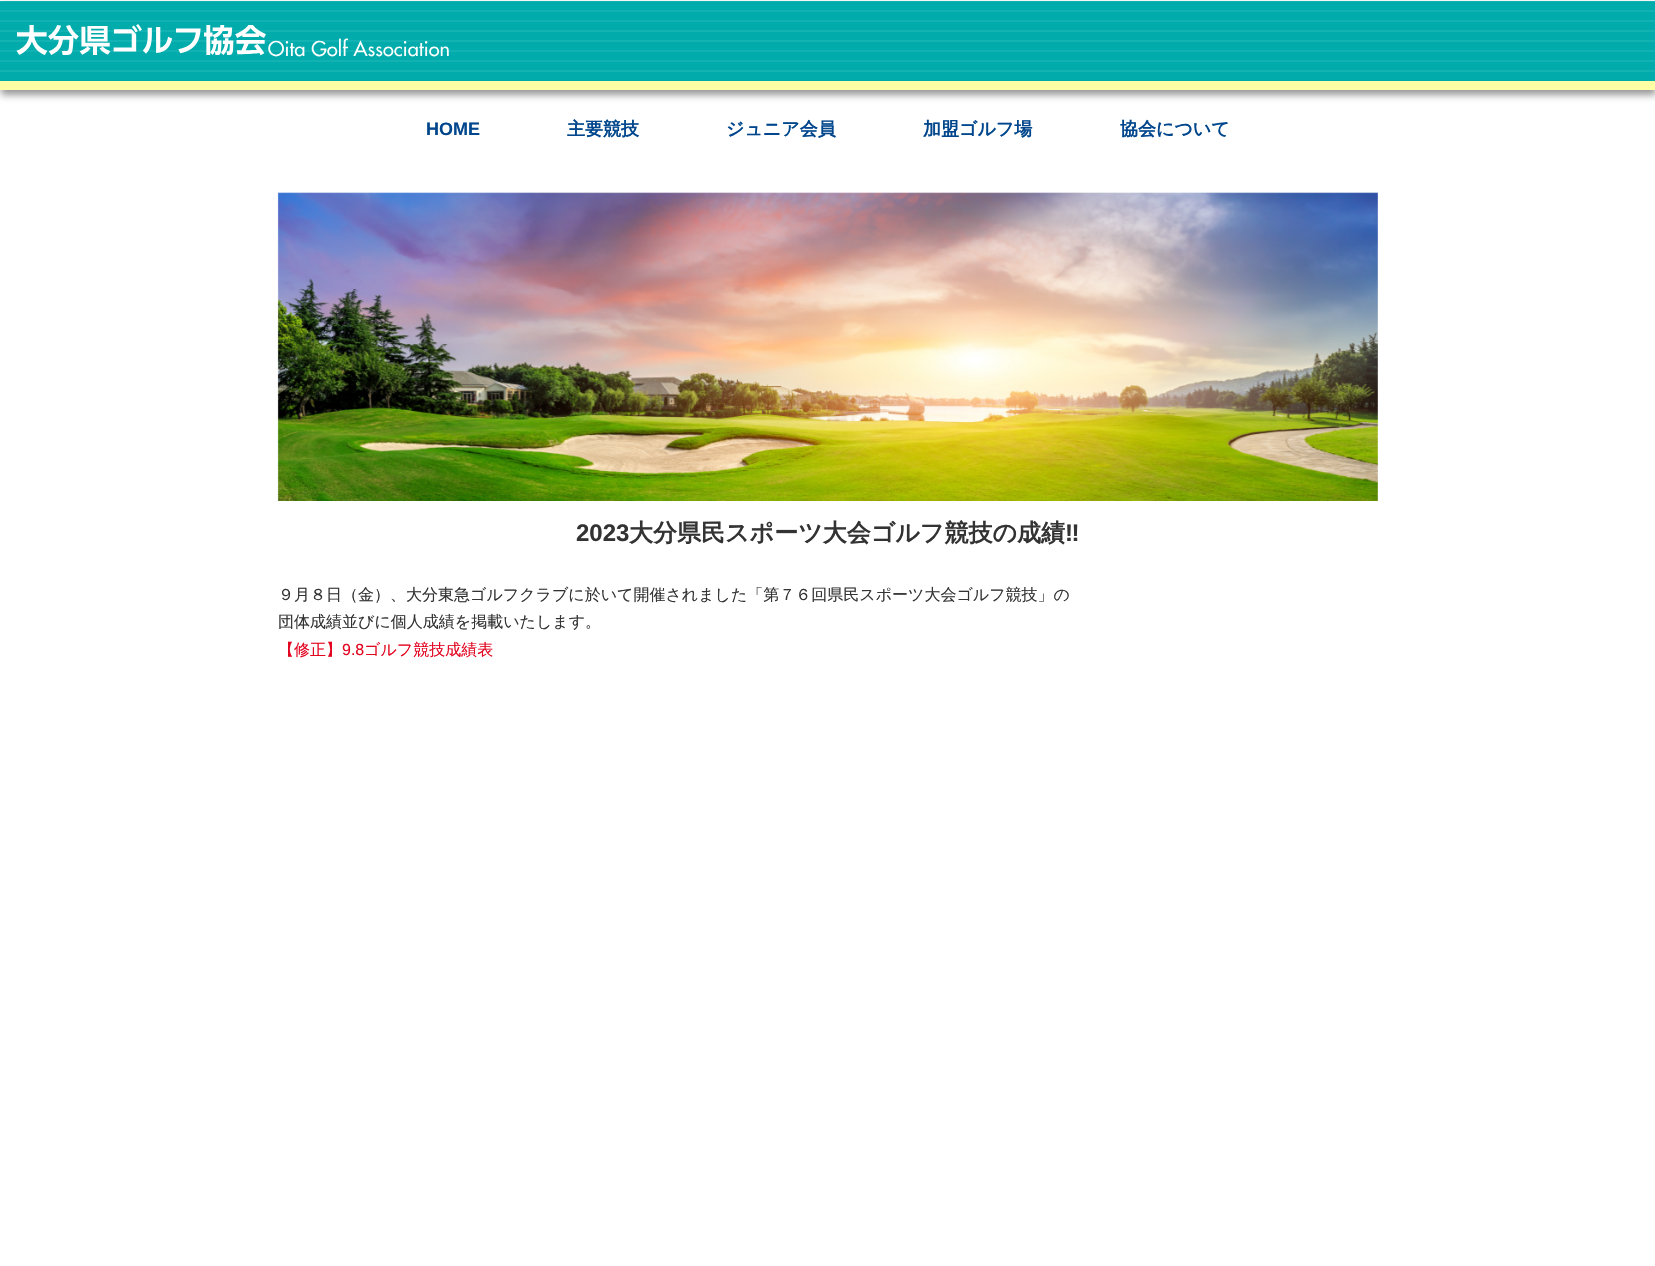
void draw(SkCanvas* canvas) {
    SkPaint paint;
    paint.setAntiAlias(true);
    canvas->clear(0xFFFFFFFF);
    paint.setColor(0x66000000);
    paint.setMaskFilter(SkMaskFilter::MakeBlur(kNormal_SkBlurStyle, 3.5f));
    canvas->drawRect(SkRect::MakeXYWH(1, 5, 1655, 90), paint);
    paint.setMaskFilter(nullptr);
    canvas->drawImageRect(SkImages::DeferredFromEncodedData(SkData::MakeFromFileName("img1.png")), SkRect::MakeXYWH(0, 1, 1655, 89), SkSamplingOptions());
    canvas->drawImageRect(SkImages::DeferredFromEncodedData(SkData::MakeFromFileName("img2.png")), SkRect::MakeXYWH(16, 24, 433, 33), SkSamplingOptions());
    SkFont font1(fontMgr->matchFamilyStyle("Liberation Sans", SkFontStyle::Bold()), 18);
    font1.setSubpixel(true);
    paint.setColor(0xFF00468C);
    canvas->drawString("HOME", 426, 135, font1, paint);
    SkFont font2(fontMgr->matchFamilyStyle("WenQuanYi Zen Hei", SkFontStyle::Bold()), 18);
    font2.setSubpixel(true);
    canvas->drawString("主要競技", 567, 135, font2, paint);
    canvas->drawString("ジュニア会員", 726, 135, font2, paint);
    canvas->drawString("加盟ゴルフ場", 923, 135, font2, paint);
    canvas->drawString("協会について", 1120, 135, font2, paint);
    canvas->drawImageRect(SkImages::DeferredFromEncodedData(SkData::MakeFromFileName("img3.png")), SkRect::MakeXYWH(277, 192, 1101, 309), SkSamplingOptions());
    SkFont font3(fontMgr->matchFamilyStyle("Liberation Sans", SkFontStyle::Bold()), 24);
    font3.setSubpixel(true);
    paint.setColor(0xFF333333);
    canvas->drawString("2023", 576, 541, font3, paint);
    SkFont font4(fontMgr->matchFamilyStyle("WenQuanYi Zen Hei", SkFontStyle::Bold()), 24);
    font4.setSubpixel(true);
    canvas->drawString("大分県民スポーツ大会ゴルフ競技の成績", 629, 541, font4, paint);
    canvas->drawString("‼", 1065, 541, font3, paint);
    SkFont font5(fontMgr->matchFamilyStyle("WenQuanYi Zen Hei", SkFontStyle(500, SkFontStyle::kNormal_Width, SkFontStyle::kUpright_Slant)), 16);
    font5.setSubpixel(true);
    canvas->drawString("９月８日（金）、大分東急ゴルフクラブに於いて開催されました「第７６回県民スポーツ大会ゴルフ競技」の", 278, 600, font5, paint);
    canvas->drawString("団体成績並びに個人成績を掲載いたします。", 278, 627, font5, paint);
    paint.setColor(0xFFE30420);
    canvas->drawString("【修正】", 278, 655, font5, paint);
    SkFont font6(fontMgr->matchFamilyStyle("Liberation Sans", SkFontStyle::Normal()), 16);
    font6.setSubpixel(true);
    canvas->drawString("9.8", 342, 655, font6, paint);
    canvas->drawString("ゴルフ競技成績表", 364, 655, font5, paint);
}
